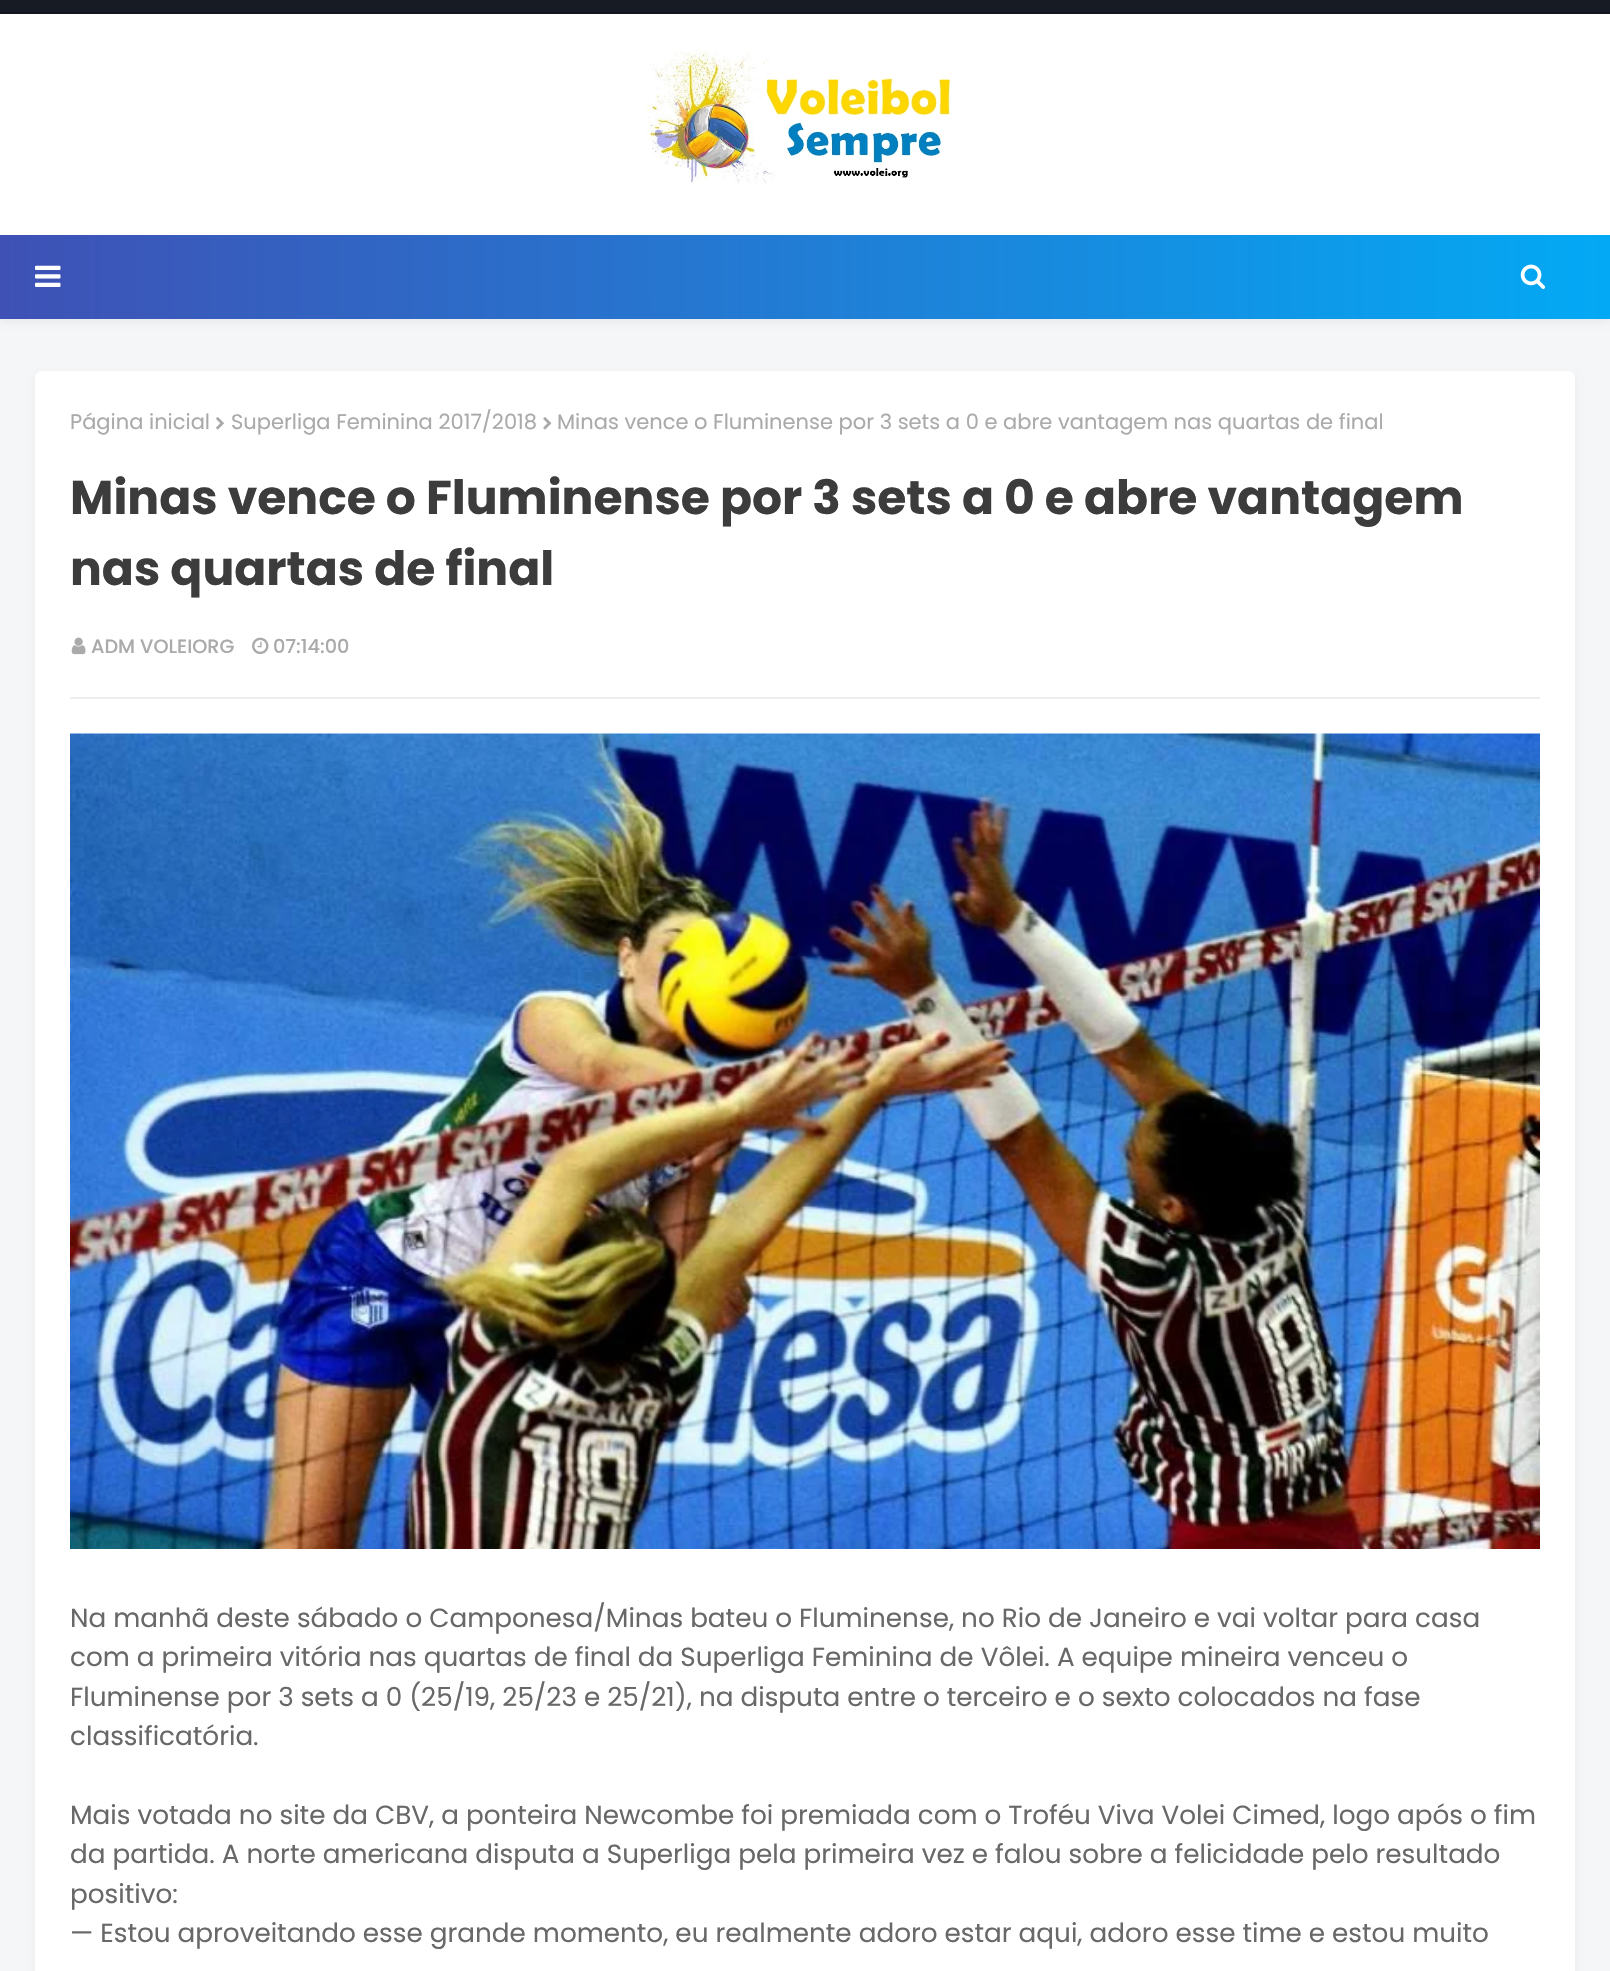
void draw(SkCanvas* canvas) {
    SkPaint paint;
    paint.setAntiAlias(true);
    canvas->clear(0xFFF5F6F7);
    paint.setColor(0xFF171C24);
    canvas->drawRect(SkRect::MakeXYWH(0, 0, 1610, 12), paint);
    paint.setColor(0xFF12161D);
    canvas->drawRect(SkRect::MakeXYWH(0, 12, 1610, 2), paint);
    paint.setColor(0x0D000000);
    paint.setMaskFilter(SkMaskFilter::MakeBlur(kNormal_SkBlurStyle, 3.5f));
    canvas->drawRect(SkRect::MakeXYWH(0, 18, 1610, 304), paint);
    paint.setMaskFilter(nullptr);
    paint.setColor(0xFFFFFFFF);
    canvas->drawRect(SkRect::MakeXYWH(0, 14, 1610, 221), paint);
    canvas->drawImageRect(SkImages::DeferredFromEncodedData(SkData::MakeFromFileName("img1.png")), SkRect::MakeXYWH(646, 50, 304, 135), SkSamplingOptions());
    {
        const SkColor colors[] = {0xFF3F51B5, 0xFF03A9F4};
        const float stops[] = {0, 1};
        const SkPoint ends[] = {{0, 277}, {1610, 276}};
        paint.setShader(SkGradientShader::MakeLinear(ends, colors, stops, 2, SkTileMode::kClamp));
        paint.setAlpha(255);
    }
    canvas->drawRect(SkRect::MakeXYWH(0, 235, 1610, 84), paint);
    canvas->drawImageRect(SkImages::DeferredFromEncodedData(SkData::MakeFromFileName("img2.png")), SkRect::MakeXYWH(35, 265, 26, 22), SkSamplingOptions());
    canvas->drawImageRect(SkImages::DeferredFromEncodedData(SkData::MakeFromFileName("img3.png")), SkRect::MakeXYWH(1520, 264, 26, 25), SkSamplingOptions());
    paint.setShader(nullptr);
    paint.setColor(0x0D000000);
    paint.setMaskFilter(SkMaskFilter::MakeBlur(kNormal_SkBlurStyle, 3.5f));
    canvas->drawRoundRect(SkRect::MakeXYWH(35, 375, 1540, 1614), 7, 7, paint);
    paint.setMaskFilter(nullptr);
    paint.setColor(0xFFFFFFFF);
    canvas->drawRoundRect(SkRect::MakeXYWH(35, 371, 1540, 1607), 7, 7, paint);
    SkFont font1(fontMgr->matchFamilyStyle("Poppins", SkFontStyle::Normal()), 21);
    font1.setSubpixel(true);
    paint.setColor(0xFFAAAAAA);
    canvas->drawString("Página inicial", 70, 429, font1, paint);
    canvas->drawImageRect(SkImages::DeferredFromEncodedData(SkData::MakeFromFileName("img4.png")), SkRect::MakeXYWH(216, 417, 8, 13), SkSamplingOptions());
    canvas->drawString("Superliga Feminina 2017/2018", 231, 429, font1, paint);
    canvas->drawImageRect(SkImages::DeferredFromEncodedData(SkData::MakeFromFileName("img5.png")), SkRect::MakeXYWH(543, 417, 9, 13), SkSamplingOptions());
    canvas->drawString("Minas vence o Fluminense por 3 sets a 0 e abre vantagem nas quartas de final", 557, 429, font1, paint);
    SkFont font2(fontMgr->matchFamilyStyle("Poppins", SkFontStyle::Bold()), 47.25f);
    font2.setSubpixel(true);
    paint.setColor(0xFF3C3C3C);
    canvas->drawString("Minas vence o Fluminense por 3 sets a 0 e abre vantagem", 70, 514, font2, paint);
    canvas->drawString("nas quartas de final", 70, 585, font2, paint);
    canvas->drawImageRect(SkImages::DeferredFromEncodedData(SkData::MakeFromFileName("img6.png")), SkRect::MakeXYWH(71, 637, 15, 18), SkSamplingOptions());
    SkFont font3(fontMgr->matchFamilyStyle("Poppins", SkFontStyle(500, SkFontStyle::kNormal_Width, SkFontStyle::kUpright_Slant)), 19.25f);
    font3.setSubpixel(true);
    paint.setColor(0xFFAAAAAA);
    canvas->drawString("ADM VOLEIORG", 91, 653, font3, paint);
    canvas->drawImageRect(SkImages::DeferredFromEncodedData(SkData::MakeFromFileName("img7.png")), SkRect::MakeXYWH(252, 637, 17, 18), SkSamplingOptions());
    canvas->drawString("07:14:00", 273, 653, font3, paint);
    paint.setColor(0xFFEEEEEE);
    canvas->drawRect(SkRect::MakeXYWH(70, 697, 1470, 2), paint);
    canvas->drawImageRect(SkImages::DeferredFromEncodedData(SkData::MakeFromFileName("img8.png")), SkRect::MakeXYWH(70, 733, 1470, 816), SkSamplingOptions());
    SkFont font4(fontMgr->matchFamilyStyle("Poppins", SkFontStyle::Normal()), 26.25f);
    font4.setSubpixel(true);
    paint.setColor(0xFF686868);
    canvas->drawString("Na manhã deste sábado o Camponesa/Minas bateu o Fluminense, no Rio de Janeiro e vai voltar para casa", 70, 1627, font4, paint);
    canvas->drawString("com a primeira vitória nas quartas de final da Superliga Feminina de Vôlei. A equipe mineira venceu o", 70, 1666, font4, paint);
    canvas->drawString("Fluminense por 3 sets a 0 (25/19, 25/23 e 25/21), na disputa entre o terceiro e o sexto colocados na fase", 70, 1706, font4, paint);
    canvas->drawString("classificatória.", 70, 1745, font4, paint);
    canvas->drawString("Mais votada no site da CBV, a ponteira Newcombe foi premiada com o Troféu Viva Volei Cimed, logo após o fim", 70, 1824, font4, paint);
    canvas->drawString("da partida. A norte americana disputa a Superliga pela primeira vez e falou sobre a felicidade pelo resultado", 70, 1863, font4, paint);
    canvas->drawString("positivo:", 70, 1903, font4, paint);
    canvas->drawString("— Estou aproveitando esse grande momento, eu realmente adoro estar aqui, adoro esse time e estou muito", 70, 1942, font4, paint);
}
